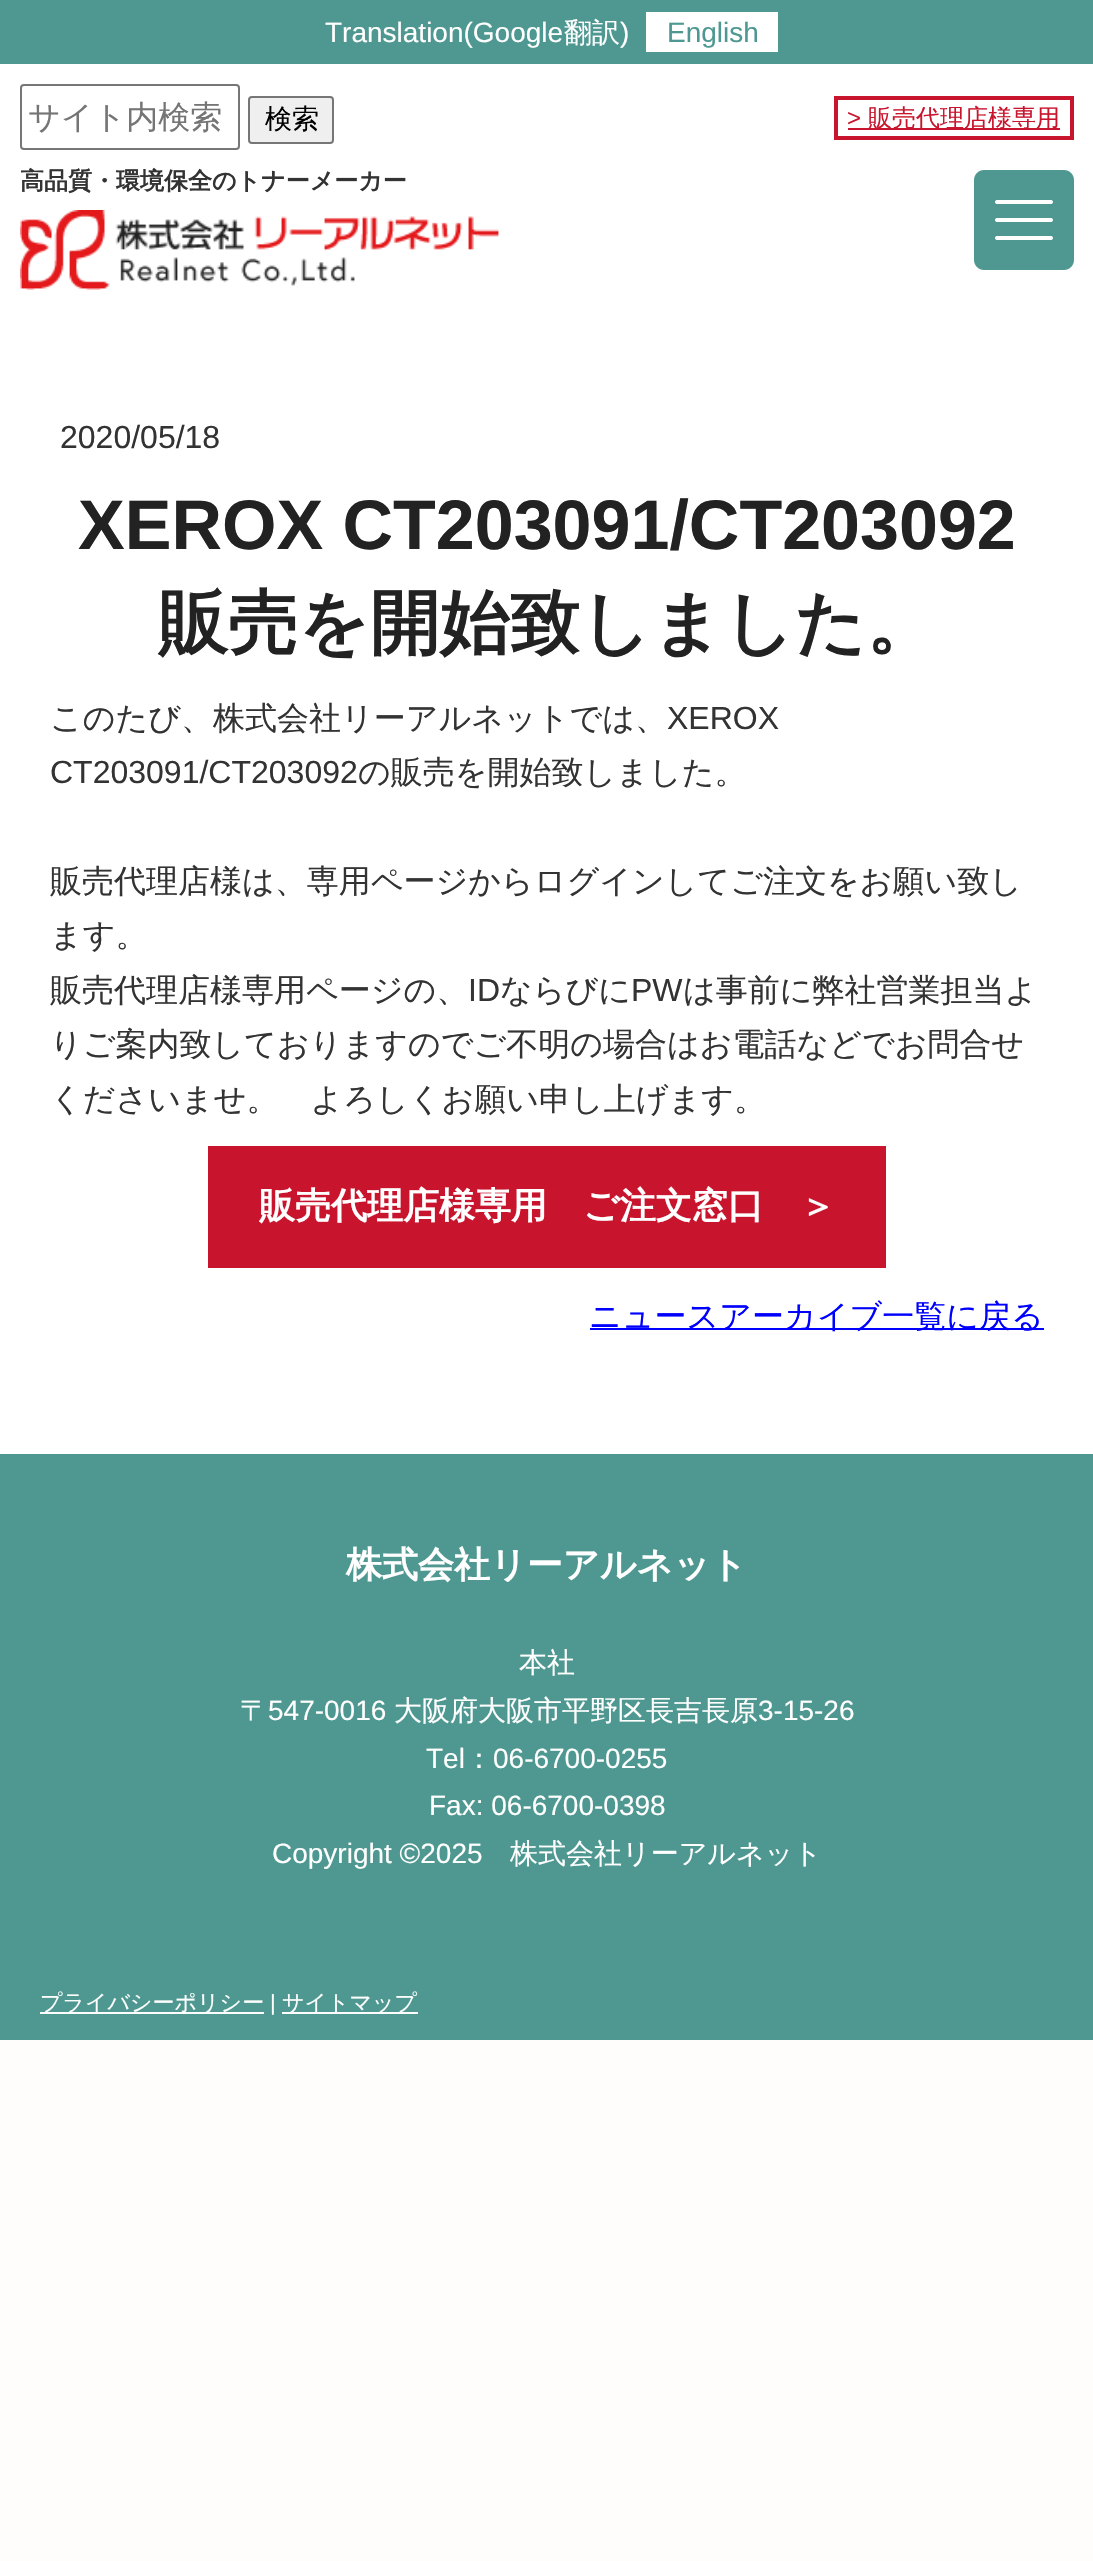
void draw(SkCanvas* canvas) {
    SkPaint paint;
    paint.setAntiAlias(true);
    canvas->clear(0xFFFFFCFC);
    paint.setColor(0xFF4E9891);
    canvas->drawRect(SkRect::MakeXYWH(0, 0, 1093, 64), paint);
    SkFont font1(fontMgr->matchFamilyStyle("Liberation Sans", SkFontStyle::Normal()), 28);
    font1.setSubpixel(true);
    paint.setColor(0xFFFFFFFF);
    canvas->drawString("Translation(Google", 325, 42, font1, paint);
    SkFont font2(fontMgr->matchFamilyStyle("WenQuanYi Zen Hei", SkFontStyle(500, SkFontStyle::kNormal_Width, SkFontStyle::kUpright_Slant)), 28);
    font2.setSubpixel(true);
    canvas->drawString("翻訳", 564, 42, font2, paint);
    canvas->drawString(")", 620, 42, font1, paint);
    canvas->drawRect(SkRect::MakeXYWH(646, 12, 132, 40), paint);
    paint.setColor(0xFF4E9891);
    canvas->drawString("English", 667, 42, font1, paint);
    paint.setColor(0xFFFFFFFF);
    canvas->drawRect(SkRect::MakeXYWH(0, 64, 1093, 1390), paint);
    paint.setStyle(SkPaint::kStroke_Style);
    paint.setStrokeWidth(2);
    paint.setColor(0xFF767676);
    canvas->drawRoundRect(SkRect::MakeXYWH(21, 85, 218, 64), 3, 3, paint);
    SkFont font3(fontMgr->matchFamilyStyle("WenQuanYi Zen Hei", SkFontStyle(500, SkFontStyle::kNormal_Width, SkFontStyle::kUpright_Slant)), 32);
    font3.setSubpixel(true);
    paint.setStyle(SkPaint::kFill_Style);
    paint.setColor(0xFF757575);
    canvas->drawString("サイト内検索", 28, 128, font3, paint);
    paint.setColor(0xFFEFEFEF);
    canvas->drawRoundRect(SkRect::MakeXYWH(249, 97, 84, 46), 3, 3, paint);
    paint.setStyle(SkPaint::kStroke_Style);
    paint.setColor(0xFF767676);
    canvas->drawRoundRect(SkRect::MakeXYWH(249, 97, 84, 46), 3, 3, paint);
    SkFont font4(fontMgr->matchFamilyStyle("WenQuanYi Zen Hei", SkFontStyle(500, SkFontStyle::kNormal_Width, SkFontStyle::kUpright_Slant)), 27);
    font4.setSubpixel(true);
    paint.setStyle(SkPaint::kFill_Style);
    paint.setColor(0xFF000000);
    canvas->drawString("検索", 265, 128, font4, paint);
    paint.setStyle(SkPaint::kStroke_Style);
    paint.setStrokeWidth(4);
    paint.setColor(0xFFC8152D);
    canvas->drawRect(SkRect::MakeXYWH(836, 98, 236, 40), paint);
    SkFont font5(fontMgr->matchFamilyStyle("Liberation Sans", SkFontStyle::Normal()), 24);
    font5.setSubpixel(true);
    paint.setStyle(SkPaint::kFill_Style);
    canvas->drawString(">", 847, 126, font5, paint);
    canvas->drawRect(SkRect::MakeXYWH(848, 128, 212, 2), paint);
    SkFont font6(fontMgr->matchFamilyStyle("WenQuanYi Zen Hei", SkFontStyle(500, SkFontStyle::kNormal_Width, SkFontStyle::kUpright_Slant)), 24);
    font6.setSubpixel(true);
    canvas->drawString("販売代理店様専用", 868, 126, font6, paint);
    SkFont font7(fontMgr->matchFamilyStyle("WenQuanYi Zen Hei", SkFontStyle::Bold()), 24);
    font7.setSubpixel(true);
    paint.setColor(0xFF333333);
    canvas->drawString("高品質・環境保全のトナーメーカー", 20, 189, font7, paint);
    canvas->drawImageRect(SkImages::DeferredFromEncodedData(SkData::MakeFromFileName("img1.png")), SkRect::MakeXYWH(20, 210, 479, 80), SkSamplingOptions());
    canvas->drawImageRect(SkImages::DeferredFromEncodedData(SkData::MakeFromFileName("img2.png")), SkRect::MakeXYWH(974, 170, 100, 100), SkSamplingOptions());
    SkFont font8(fontMgr->matchFamilyStyle("Liberation Sans", SkFontStyle::Normal()), 32);
    font8.setSubpixel(true);
    canvas->drawString("2020/05/18", 60, 448, font8, paint);
    SkFont font9(fontMgr->matchFamilyStyle("Liberation Sans", SkFontStyle::Bold()), 70);
    font9.setSubpixel(true);
    paint.setColor(0xFF222222);
    canvas->drawString("XEROX CT203091/CT203092", 78, 549, font9, paint);
    SkFont font10(fontMgr->matchFamilyStyle("WenQuanYi Zen Hei", SkFontStyle::Bold()), 70);
    font10.setSubpixel(true);
    canvas->drawString("販売を開始致しました。", 158, 647, font10, paint);
    paint.setColor(0xFF333333);
    canvas->drawString("このたび、株式会社リーアルネットでは、", 50, 729, font3, paint);
    canvas->drawString("XEROX", 667, 729, font8, paint);
    canvas->drawString("CT203091/CT203092", 50, 783, font8, paint);
    canvas->drawString("の販売を開始致しました。", 358, 783, font3, paint);
    canvas->drawString("販売代理店様は、専用ページからログインしてご注文をお願い致し", 50, 892, font3, paint);
    canvas->drawString("ます。", 50, 946, font3, paint);
    canvas->drawString("販売代理店様専用ページの、", 50, 1001, font3, paint);
    canvas->drawString("ID", 468, 1001, font8, paint);
    canvas->drawString("ならびに", 500, 1001, font3, paint);
    canvas->drawString("PW", 631, 1001, font8, paint);
    canvas->drawString("は事前に弊社営業担当よ", 683, 1001, font3, paint);
    canvas->drawString("りご案内致しておりますのでご不明の場合はお電話などでお問合せ", 50, 1055, font3, paint);
    canvas->drawString("くださいませ。　よろしくお願い申し上げます。", 50, 1110, font3, paint);
    paint.setColor(0xFFC8152D);
    canvas->drawRect(SkRect::MakeXYWH(208, 1146, 678, 122), paint);
    SkFont font11(fontMgr->matchFamilyStyle("WenQuanYi Zen Hei", SkFontStyle::Bold()), 36);
    font11.setSubpixel(true);
    paint.setColor(0xFFFFFFFF);
    canvas->drawString("販売代理店様専用　ご注文窓口　＞", 259, 1218, font11, paint);
    paint.setColor(0xFF0000FF);
    canvas->drawRect(SkRect::MakeXYWH(590, 1328, 454, 2), paint);
    canvas->drawString("ニュースアーカイブ一覧に戻る", 589, 1327, font3, paint);
    paint.setColor(0xFF4E9891);
    canvas->drawRect(SkRect::MakeXYWH(0, 1454, 1093, 586), paint);
    paint.setColor(0xFFFFFFFF);
    canvas->drawString("株式会社リーアルネット", 346, 1577, font11, paint);
    canvas->drawString("本社", 519, 1672, font2, paint);
    canvas->drawString("〒", 240, 1720, font2, paint);
    canvas->drawString("547-0016", 268, 1720, font1, paint);
    canvas->drawString("大阪府大阪市平野区長吉長原", 394, 1720, font2, paint);
    canvas->drawString("3-15-26", 758, 1720, font1, paint);
    canvas->drawString("Tel", 426, 1768, font1, paint);
    canvas->drawString("：", 465, 1768, font2, paint);
    canvas->drawString("06-6700-0255", 493, 1768, font1, paint);
    canvas->drawString("Fax: 06-6700-0398", 429, 1815, font1, paint);
    canvas->drawString("Copyright ©2025", 272, 1863, font1, paint);
    canvas->drawString("株式会社リーアルネット", 510, 1863, font2, paint);
    canvas->drawRect(SkRect::MakeXYWH(40, 2012, 224, 2), paint);
    SkFont font12(fontMgr->matchFamilyStyle("WenQuanYi Zen Hei", SkFontStyle(500, SkFontStyle::kNormal_Width, SkFontStyle::kUpright_Slant)), 22);
    font12.setSubpixel(true);
    canvas->drawString("プライバシーポリシー", 40, 2010, font12, paint);
    SkFont font13(fontMgr->matchFamilyStyle("Liberation Sans", SkFontStyle::Normal()), 22);
    font13.setSubpixel(true);
    canvas->drawString("|", 270, 2010, font13, paint);
    canvas->drawRect(SkRect::MakeXYWH(282, 2012, 136, 2), paint);
    canvas->drawString("サイトマップ", 282, 2010, font12, paint);
}
